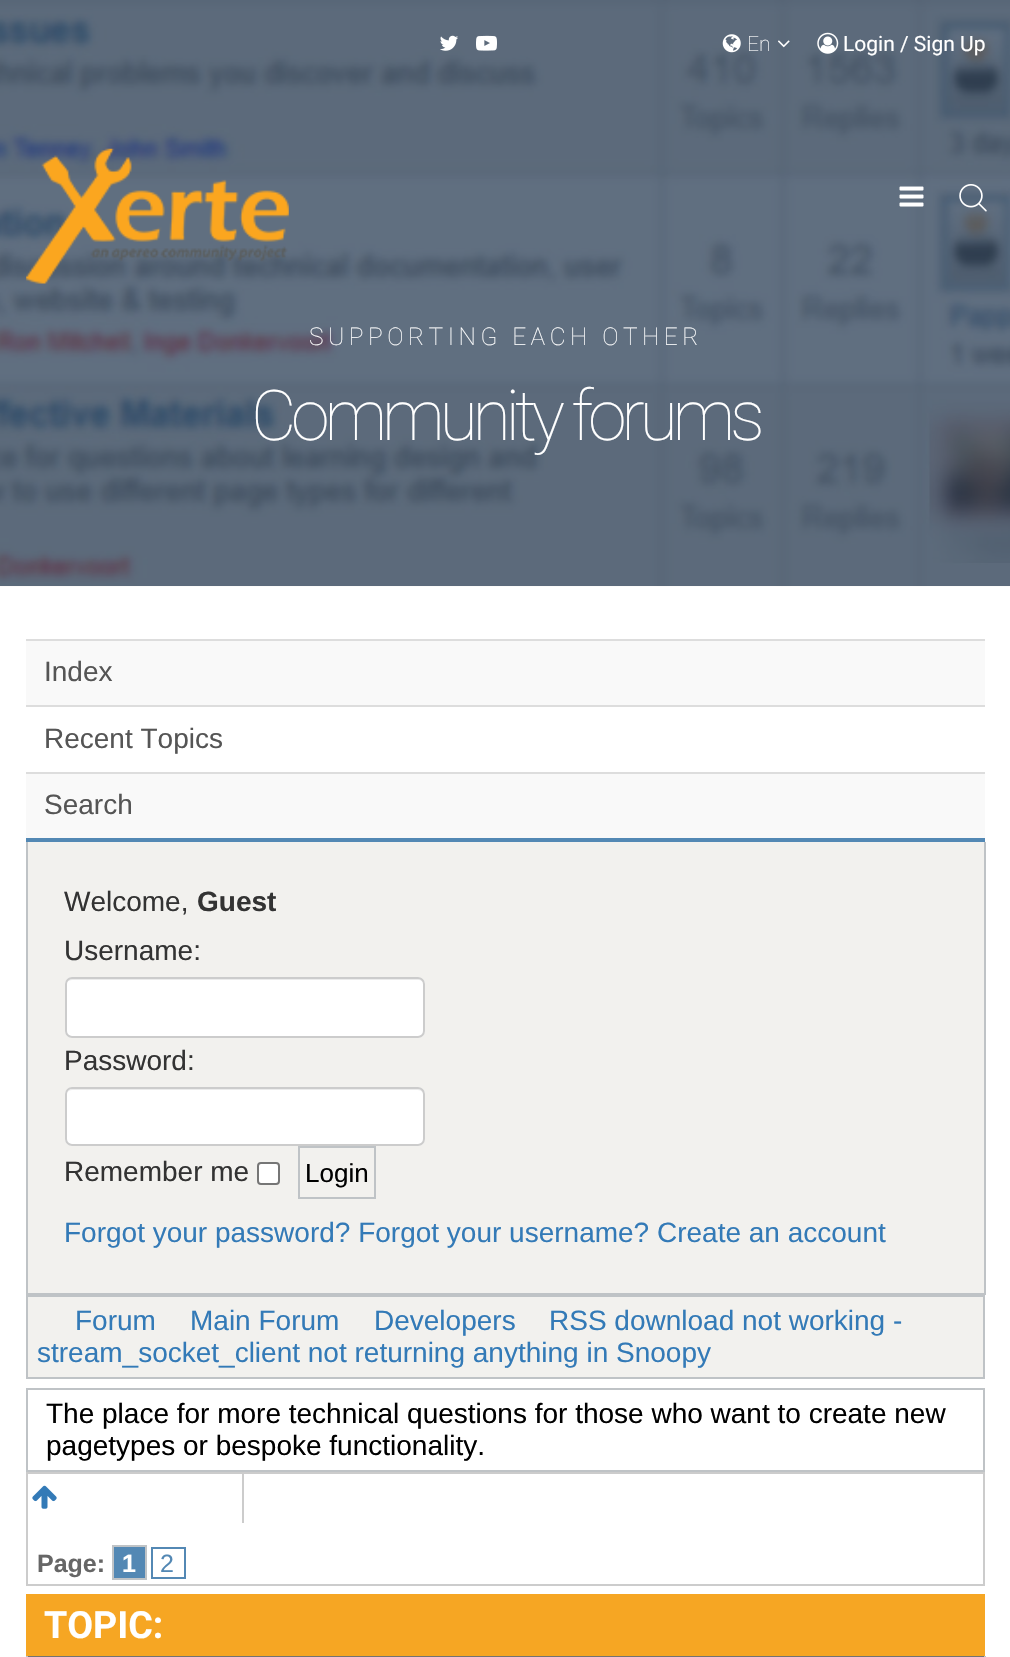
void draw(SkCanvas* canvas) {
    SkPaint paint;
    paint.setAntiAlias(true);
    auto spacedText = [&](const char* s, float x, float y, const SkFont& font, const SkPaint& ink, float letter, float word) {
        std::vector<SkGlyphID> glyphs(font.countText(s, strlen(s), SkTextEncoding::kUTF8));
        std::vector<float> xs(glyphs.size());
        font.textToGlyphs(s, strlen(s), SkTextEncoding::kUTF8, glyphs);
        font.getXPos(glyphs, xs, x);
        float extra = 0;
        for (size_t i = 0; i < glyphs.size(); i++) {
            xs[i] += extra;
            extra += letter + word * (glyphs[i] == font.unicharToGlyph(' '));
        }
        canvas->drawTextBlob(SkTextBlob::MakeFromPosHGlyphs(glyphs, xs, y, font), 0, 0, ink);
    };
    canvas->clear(0xFFFFFFFF);
    canvas->drawImageRect(SkImages::DeferredFromEncodedData(SkData::MakeFromFileName("img9.png")), SkRect::MakeXYWH(0, 0, 1010, 587), SkSamplingOptions());
    canvas->drawImageRect(SkImages::DeferredFromEncodedData(SkData::MakeFromFileName("img1.png")), SkRect::MakeXYWH(440, 35, 18, 16), SkSamplingOptions());
    canvas->drawImageRect(SkImages::DeferredFromEncodedData(SkData::MakeFromFileName("img2.png")), SkRect::MakeXYWH(476, 35, 21, 16), SkSamplingOptions());
    canvas->drawImageRect(SkImages::DeferredFromEncodedData(SkData::MakeFromFileName("img3.png")), SkRect::MakeXYWH(722, 34, 19, 19), SkSamplingOptions());
    SkFont font1(fontMgr->matchFamilyStyle("Roboto", SkFontStyle(100, SkFontStyle::kNormal_Width, SkFontStyle::kUpright_Slant)), 21);
    font1.setSubpixel(true);
    paint.setColor(0xFFFFFFFF);
    canvas->drawString("En", 747, 51, font1, paint);
    canvas->drawImageRect(SkImages::DeferredFromEncodedData(SkData::MakeFromFileName("img4.png")), SkRect::MakeXYWH(778, 40, 12, 8), SkSamplingOptions());
    canvas->drawImageRect(SkImages::DeferredFromEncodedData(SkData::MakeFromFileName("img5.png")), SkRect::MakeXYWH(817, 32, 22, 22), SkSamplingOptions());
    SkFont font2(fontMgr->matchFamilyStyle("Roboto", SkFontStyle::Normal()), 21);
    font2.setSubpixel(true);
    canvas->drawString("Login / Sign Up", 843, 51, font2, paint);
    canvas->drawImageRect(SkImages::DeferredFromEncodedData(SkData::MakeFromFileName("img6.png")), SkRect::MakeXYWH(26, 148, 263, 136), SkSamplingOptions());
    canvas->drawImageRect(SkImages::DeferredFromEncodedData(SkData::MakeFromFileName("img7.png")), SkRect::MakeXYWH(899, 186, 25, 21), SkSamplingOptions());
    canvas->drawImageRect(SkImages::DeferredFromEncodedData(SkData::MakeFromFileName("img8.png")), SkRect::MakeXYWH(959, 184, 28, 28), SkSamplingOptions());
    SkFont font3(fontMgr->matchFamilyStyle("Roboto", SkFontStyle(100, SkFontStyle::kNormal_Width, SkFontStyle::kUpright_Slant)), 24.5f);
    font3.setSubpixel(true);
    spacedText("SUPPORTING EACH OTHER", 309, 345, font3, paint, 4.5f, 0);
    SkFont font4(fontMgr->matchFamilyStyle("Roboto", SkFontStyle(100, SkFontStyle::kNormal_Width, SkFontStyle::kUpright_Slant)), 70);
    font4.setSubpixel(true);
    spacedText("Community forums", 251, 440, font4, paint, -5.25f, 0);
    paint.setColor(0xFF5388B4);
    canvas->drawRect(SkRect::MakeXYWH(26, 838, 959, 4), paint);
    paint.setColor(0xFFDDDDDD);
    canvas->drawRect(SkRect::MakeXYWH(26, 639, 959, 2), paint);
    paint.setColor(0xFFF9F9F9);
    canvas->drawRect(SkRect::MakeXYWH(26, 641, 959, 64), paint);
    SkFont font5(fontMgr->matchFamilyStyle("Liberation Sans", SkFontStyle::Normal()), 28);
    font5.setSubpixel(true);
    paint.setColor(0xFF555555);
    canvas->drawString("Index", 44, 681, font5, paint);
    paint.setColor(0xFFDDDDDD);
    canvas->drawRect(SkRect::MakeXYWH(26, 705, 959, 2), paint);
    paint.setColor(0xFF555555);
    canvas->drawString("Recent Topics", 44, 748, font5, paint);
    paint.setColor(0xFFDDDDDD);
    canvas->drawRect(SkRect::MakeXYWH(26, 772, 959, 2), paint);
    paint.setColor(0xFFF9F9F9);
    canvas->drawRect(SkRect::MakeXYWH(26, 774, 959, 64), paint);
    paint.setColor(0xFF555555);
    canvas->drawString("Search", 44, 814, font5, paint);
    paint.setColor(0xFFBFC3C6);
    canvas->drawRect(SkRect::MakeXYWH(984, 842, 2, 453), paint);
    canvas->drawRect(SkRect::MakeXYWH(26, 842, 2, 453), paint);
    canvas->drawRect(SkRect::MakeXYWH(28, 1293, 956, 2), paint);
    paint.setColor(0xFFF2F1EE);
    canvas->drawRect(SkRect::MakeXYWH(28, 842, 956, 451), paint);
    paint.setColor(0xFF333333);
    canvas->drawString("Welcome,", 64, 911, font5, paint);
    SkFont font6(fontMgr->matchFamilyStyle("Liberation Sans", SkFontStyle::Bold()), 28);
    font6.setSubpixel(true);
    canvas->drawString("Guest", 197, 911, font6, paint);
    canvas->drawString("Username:", 64, 960, font5, paint);
    paint.setColor(0xFFFFFFFF);
    canvas->drawRoundRect(SkRect::MakeXYWH(65, 977, 360, 61), 7, 7, paint);
    paint.setColor(0xFFECECEC);
    canvas->drawPath(SkPathBuilder().moveTo(72, 980).lineTo(418, 980).cubicTo(421, 980, 424, 982, 424, 985).cubicTo(424, 982, 423, 978, 419, 978).lineTo(72, 978).cubicTo(70, 978, 67, 980, 67, 982).cubicTo(68, 981, 70, 980, 72, 980).close().detach(), paint);
    paint.setStyle(SkPaint::kStroke_Style);
    paint.setStrokeWidth(2);
    paint.setColor(0xFFCCCCCC);
    canvas->drawRoundRect(SkRect::MakeXYWH(66, 978, 358, 59), 6, 6, paint);
    paint.setStyle(SkPaint::kFill_Style);
    paint.setColor(0xFF333333);
    canvas->drawString("Password:", 64, 1070, font5, paint);
    paint.setColor(0xFFFFFFFF);
    canvas->drawRoundRect(SkRect::MakeXYWH(65, 1087, 360, 59), 7, 7, paint);
    paint.setColor(0xFFECECEC);
    canvas->drawPath(SkPathBuilder().moveTo(72, 1090).lineTo(418, 1090).cubicTo(421, 1090, 424, 1093, 424, 1096).lineTo(424, 1094).cubicTo(424, 1091, 422, 1089, 419, 1089).lineTo(72, 1089).cubicTo(70, 1089, 68, 1091, 67, 1093).cubicTo(68, 1091, 70, 1090, 72, 1090).close().detach(), paint);
    paint.setStyle(SkPaint::kStroke_Style);
    paint.setColor(0xFFCCCCCC);
    canvas->drawRoundRect(SkRect::MakeXYWH(66, 1088, 358, 57), 6, 6, paint);
    paint.setStyle(SkPaint::kFill_Style);
    paint.setColor(0xFF333333);
    canvas->drawString("Remember me", 64, 1181, font5, paint);
    paint.setColor(0xFFFFFFFF);
    canvas->drawRoundRect(SkRect::MakeXYWH(258, 1163, 21, 21), 3, 3, paint);
    paint.setStyle(SkPaint::kStroke_Style);
    paint.setColor(0xFF767676);
    canvas->drawRoundRect(SkRect::MakeXYWH(258, 1163, 21, 21), 3, 3, paint);
    paint.setColor(0xFFBFC3C6);
    canvas->drawRect(SkRect::MakeXYWH(299, 1147, 76, 51), paint);
    SkFont font7(fontMgr->matchFamilyStyle("Liberation Sans", SkFontStyle::Normal()), 26);
    font7.setSubpixel(true);
    paint.setStyle(SkPaint::kFill_Style);
    paint.setColor(0xFF000000);
    canvas->drawString("Login", 305, 1182, font7, paint);
    paint.setColor(0xFF337AB7);
    canvas->drawString("Forgot your password? Forgot your username? Create an account", 64, 1242, font5, paint);
    paint.setColor(0xFFF2F1EE);
    canvas->drawRect(SkRect::MakeXYWH(27, 1296, 957, 82), paint);
    paint.setStyle(SkPaint::kStroke_Style);
    paint.setColor(0xFFBFC3C6);
    canvas->drawRect(SkRect::MakeXYWH(27, 1296, 957, 82), paint);
    paint.setStyle(SkPaint::kFill_Style);
    paint.setColor(0xFF337AB7);
    canvas->drawString("Forum", 75, 1330, font5, paint);
    canvas->drawString("Main Forum", 190, 1330, font5, paint);
    canvas->drawString("Developers", 374, 1330, font5, paint);
    canvas->drawString("RSS download not working -", 549, 1330, font5, paint);
    canvas->drawString("stream_socket_client not returning anything in Snoopy", 37, 1362, font5, paint);
    paint.setStyle(SkPaint::kStroke_Style);
    paint.setColor(0xFFBFC3C6);
    canvas->drawRect(SkRect::MakeXYWH(27, 1389, 957, 82), paint);
    paint.setStyle(SkPaint::kFill_Style);
    paint.setColor(0xFF000000);
    canvas->drawString("The place for more technical questions for those who want to create new", 46, 1423, font5, paint);
    canvas->drawString("pagetypes or bespoke functionality.", 46, 1455, font5, paint);
    paint.setStyle(SkPaint::kStroke_Style);
    paint.setColor(0xFFCCCCCC);
    canvas->drawRect(SkRect::MakeXYWH(27, 1473, 957, 112), paint);
    paint.setStyle(SkPaint::kFill_Style);
    canvas->drawRect(SkRect::MakeXYWH(242, 1474, 2, 49), paint);
    canvas->drawImageRect(SkImages::DeferredFromEncodedData(SkData::MakeFromFileName("img10.png")), SkRect::MakeXYWH(32, 1485, 25, 24), SkSamplingOptions());
    SkFont font8(fontMgr->matchFamilyStyle("Liberation Sans", SkFontStyle::Bold()), 25);
    font8.setSubpixel(true);
    paint.setColor(0xFF666666);
    canvas->drawString("Page:", 37, 1572, font8, paint);
    paint.setColor(0xFF5388B4);
    canvas->drawRect(SkRect::MakeXYWH(113, 1546, 33, 33), paint);
    paint.setStyle(SkPaint::kStroke_Style);
    paint.setColor(0xFFBFC3C6);
    canvas->drawRect(SkRect::MakeXYWH(113, 1546, 33, 33), paint);
    paint.setStyle(SkPaint::kFill_Style);
    paint.setColor(0xFFFFFFFF);
    canvas->drawString("1", 122, 1572, font8, paint);
    paint.setStyle(SkPaint::kStroke_Style);
    paint.setColor(0xFF5388B4);
    canvas->drawRect(SkRect::MakeXYWH(152, 1548, 33, 30), paint);
    SkFont font9(fontMgr->matchFamilyStyle("Liberation Sans", SkFontStyle::Normal()), 25);
    font9.setSubpixel(true);
    paint.setStyle(SkPaint::kFill_Style);
    canvas->drawString("2", 160, 1572, font9, paint);
    paint.setColor(0xFFF6A623);
    canvas->drawRect(SkRect::MakeXYWH(26, 1594, 959, 62), paint);
    SkFont font10(fontMgr->matchFamilyStyle("Roboto", SkFontStyle::Bold()), 37.5f);
    font10.setSubpixel(true);
    paint.setColor(0xFFFFFFFF);
    canvas->drawString("TOPIC:", 44, 1638, font10, paint);
    paint.setColor(0xFFBFC3C6);
    canvas->drawRect(SkRect::MakeXYWH(984, 1656, 2, 1), paint);
    canvas->drawRect(SkRect::MakeXYWH(26, 1656, 2, 1), paint);
    paint.setColor(0xFF737373);
    canvas->drawRect(SkRect::MakeXYWH(28, 1656, 956, 1), paint);
}
